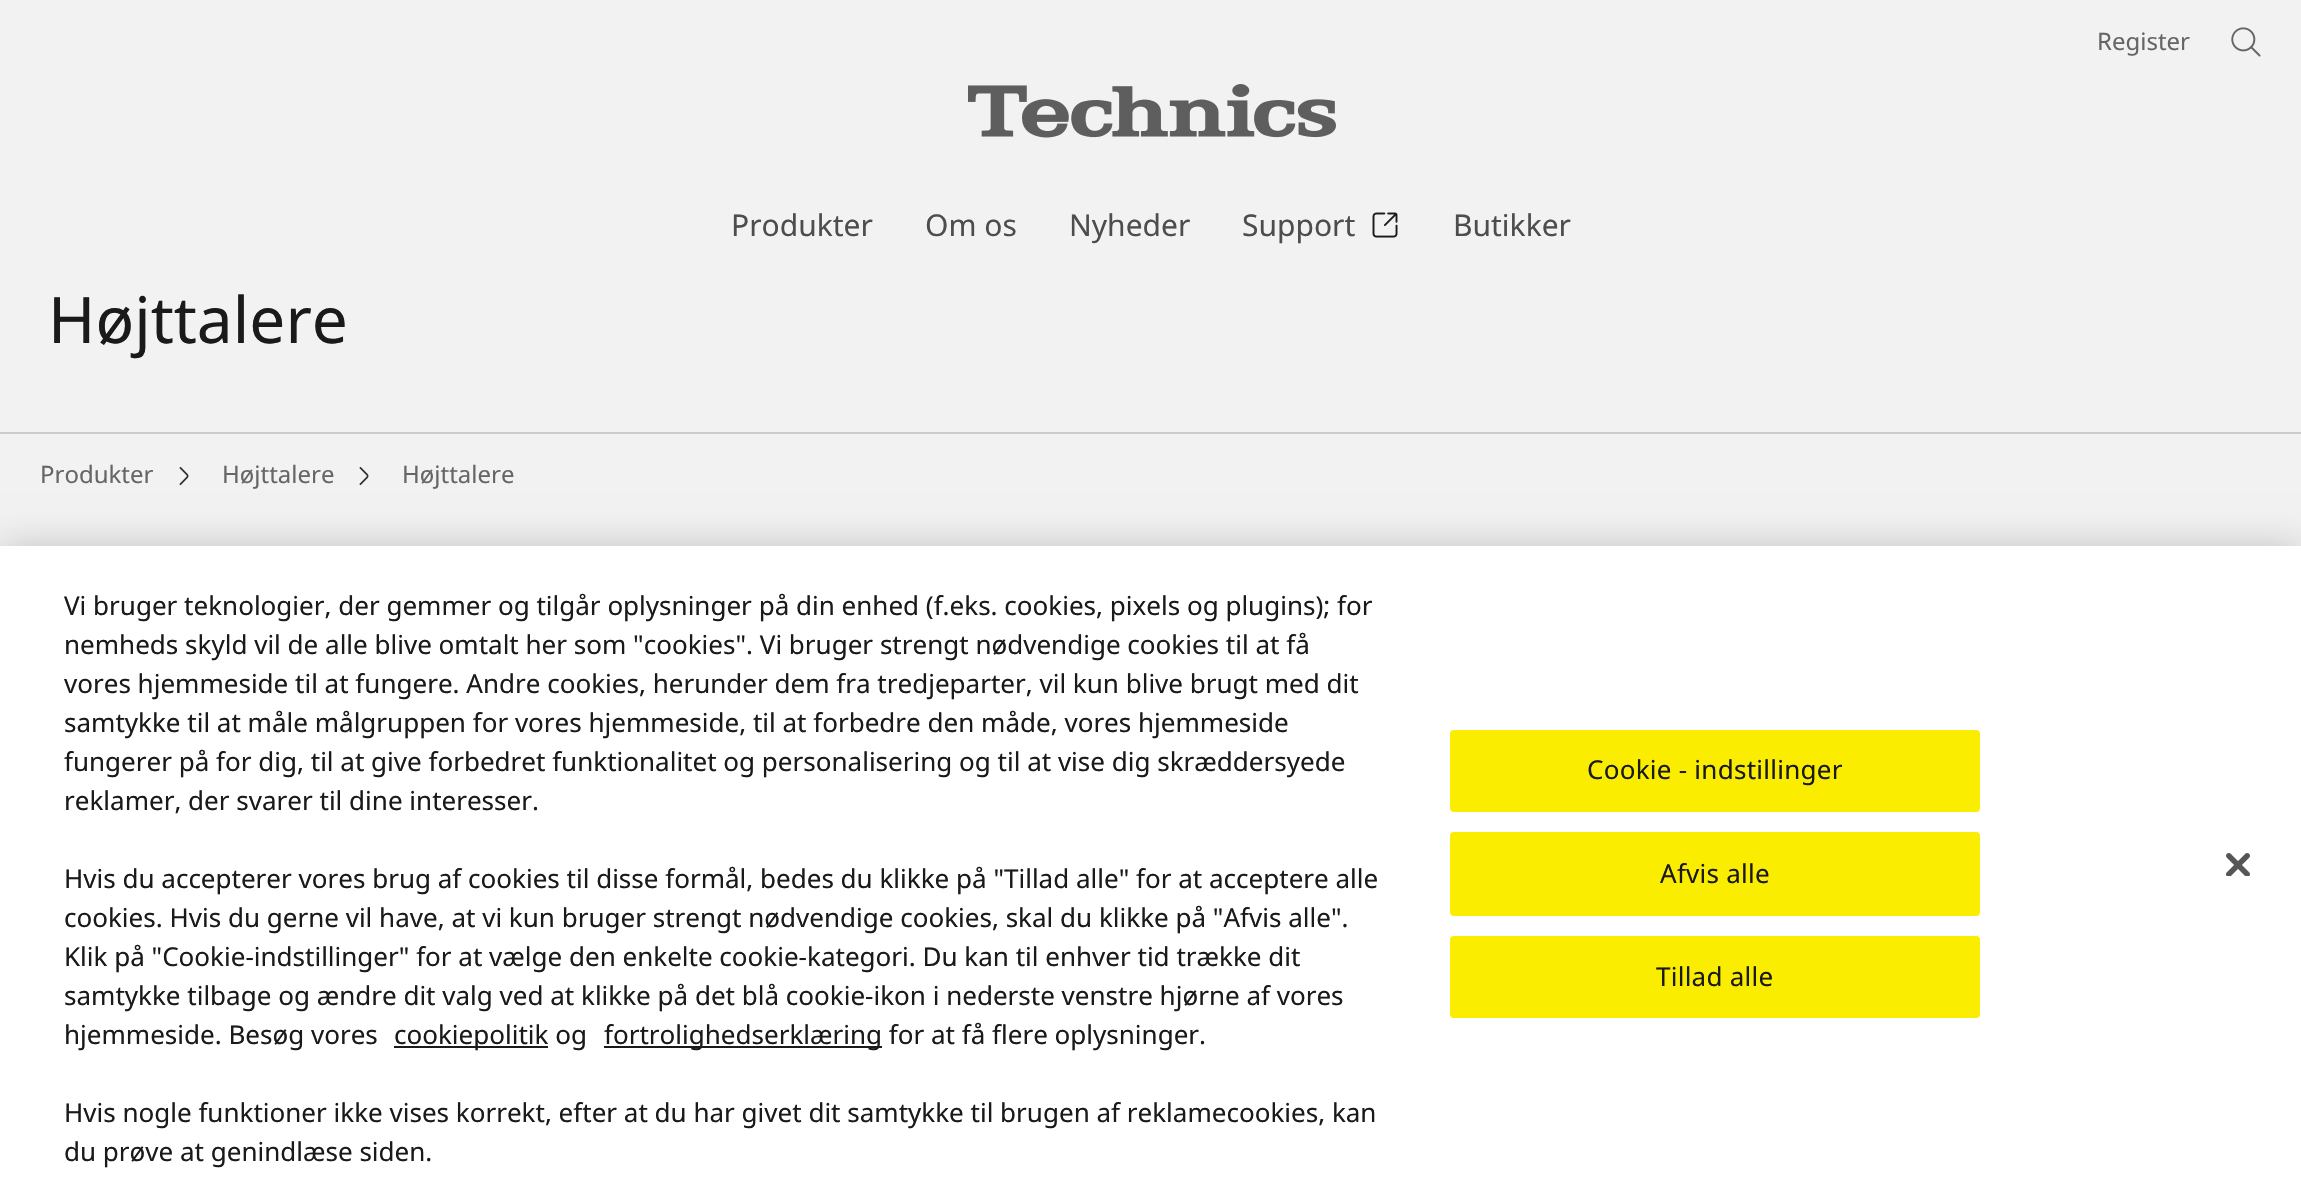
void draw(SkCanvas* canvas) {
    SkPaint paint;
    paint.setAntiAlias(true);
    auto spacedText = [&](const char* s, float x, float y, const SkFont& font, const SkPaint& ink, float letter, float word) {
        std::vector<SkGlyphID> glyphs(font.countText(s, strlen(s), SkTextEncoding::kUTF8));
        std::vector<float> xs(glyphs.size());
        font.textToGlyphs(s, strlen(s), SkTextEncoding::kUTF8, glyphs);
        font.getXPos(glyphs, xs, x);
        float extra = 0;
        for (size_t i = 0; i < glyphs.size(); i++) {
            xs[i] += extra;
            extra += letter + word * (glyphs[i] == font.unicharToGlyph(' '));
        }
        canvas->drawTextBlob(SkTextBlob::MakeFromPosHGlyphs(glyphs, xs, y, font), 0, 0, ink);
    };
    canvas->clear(0xFFF2F2F2);
    SkFont font1(fontMgr->matchFamilyStyle("Noto Sans", SkFontStyle::Normal()), 24);
    font1.setSubpixel(true);
    paint.setColor(0xFF666666);
    canvas->drawString("Register", 2097, 50, font1, paint);
    canvas->drawImageRect(SkImages::DeferredFromEncodedData(SkData::MakeFromFileName("img1.png")), SkRect::MakeXYWH(2231, 27, 30, 30), SkSamplingOptions());
    canvas->drawImageRect(SkImages::DeferredFromEncodedData(SkData::MakeFromFileName("img2.png")), SkRect::MakeXYWH(968, 84, 368, 54), SkSamplingOptions());
    SkFont font2(fontMgr->matchFamilyStyle("Noto Sans", SkFontStyle::Normal()), 30);
    font2.setSubpixel(true);
    paint.setColor(0xFF4D4D4D);
    canvas->drawString("Produkter", 731, 236, font2, paint);
    canvas->drawString("Om os", 925, 236, font2, paint);
    canvas->drawString("Nyheder", 1069, 236, font2, paint);
    canvas->drawString("Support", 1242, 236, font2, paint);
    canvas->drawImageRect(SkImages::DeferredFromEncodedData(SkData::MakeFromFileName("img3.png")), SkRect::MakeXYWH(1372, 212, 26, 26), SkSamplingOptions());
    canvas->drawString("Butikker", 1453, 236, font2, paint);
    SkFont font3(fontMgr->matchFamilyStyle("Noto Sans", SkFontStyle::Normal()), 64);
    font3.setSubpixel(true);
    paint.setColor(0xFF1A1A1A);
    canvas->drawString("Højttalere", 48, 343, font3, paint);
    paint.setColor(0xFFCCCCCC);
    canvas->drawRect(SkRect::MakeXYWH(0, 432, 2301, 2), paint);
    paint.setColor(0xFF666666);
    canvas->drawString("Produkter", 40, 483, font1, paint);
    canvas->drawImageRect(SkImages::DeferredFromEncodedData(SkData::MakeFromFileName("img4.png")), SkRect::MakeXYWH(179, 467, 10, 19), SkSamplingOptions());
    canvas->drawString("Højttalere", 222, 483, font1, paint);
    canvas->drawImageRect(SkImages::DeferredFromEncodedData(SkData::MakeFromFileName("img4.png")), SkRect::MakeXYWH(359, 467, 10, 19), SkSamplingOptions());
    canvas->drawString("Højttalere", 402, 483, font1, paint);
    paint.setColor(0x33000000);
    paint.setMaskFilter(SkMaskFilter::MakeBlur(kNormal_SkBlurStyle, 18));
    canvas->drawRect(SkRect::MakeXYWH(0, 546, 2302, 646), paint);
    paint.setMaskFilter(nullptr);
    paint.setColor(0xFFFFFFFF);
    canvas->drawRect(SkRect::MakeXYWH(0, 546, 2301, 645), paint);
    SkFont font4(fontMgr->matchFamilyStyle("Noto Sans", SkFontStyle::Normal()), 26.02f);
    font4.setSubpixel(true);
    paint.setColor(0xFF1A1A1A);
    canvas->drawString("Vi bruger teknologier, der gemmer og tilgår oplysninger på din enhed (f.eks. cookies, pixels og plugins); for", 64, 615, font4, paint);
    canvas->drawString("nemheds skyld vil de alle blive omtalt her som \"cookies\". Vi bruger strengt nødvendige cookies til at få", 64, 654, font4, paint);
    canvas->drawString("vores hjemmeside til at fungere. Andre cookies, herunder dem fra tredjeparter, vil kun blive brugt med dit", 64, 693, font4, paint);
    canvas->drawString("samtykke til at måle målgruppen for vores hjemmeside, til at forbedre den måde, vores hjemmeside", 64, 732, font4, paint);
    canvas->drawString("fungerer på for dig, til at give forbedret funktionalitet og personalisering og til at vise dig skræddersyede", 64, 771, font4, paint);
    canvas->drawString("reklamer, der svarer til dine interesser.", 64, 810, font4, paint);
    canvas->drawString("Hvis du accepterer vores brug af cookies til disse formål, bedes du klikke på \"Tillad alle\" for at acceptere alle", 64, 888, font4, paint);
    canvas->drawString("cookies. Hvis du gerne vil have, at vi kun bruger strengt nødvendige cookies, skal du klikke på \"Afvis alle\".", 64, 927, font4, paint);
    canvas->drawString("Klik på \"Cookie-indstillinger\" for at vælge den enkelte cookie-kategori. Du kan til enhver tid trække dit", 64, 966, font4, paint);
    canvas->drawString("samtykke tilbage og ændre dit valg ved at klikke på det blå cookie-ikon i nederste venstre hjørne af vores", 64, 1005, font4, paint);
    canvas->drawString("hjemmeside. Besøg vores", 64, 1044, font4, paint);
    canvas->drawRect(SkRect::MakeXYWH(394, 1046, 154, 2), paint);
    canvas->drawString("cookiepolitik og", 394, 1044, font4, paint);
    canvas->drawRect(SkRect::MakeXYWH(604, 1046, 278, 2), paint);
    canvas->drawString("fortrolighedserklæring for at få flere oplysninger.", 604, 1044, font4, paint);
    canvas->drawString("Hvis nogle funktioner ikke vises korrekt, efter at du har givet dit samtykke til brugen af reklamecookies, kan", 64, 1122, font4, paint);
    canvas->drawString("du prøve at genindlæse siden.", 64, 1161, font4, paint);
    paint.setColor(0xFFFAED00);
    canvas->drawRoundRect(SkRect::MakeXYWH(1451, 731, 528, 80), 3, 3, paint);
    paint.setStyle(SkPaint::kStroke_Style);
    paint.setStrokeWidth(2);
    canvas->drawRoundRect(SkRect::MakeXYWH(1451, 731, 528, 80), 3, 3, paint);
    paint.setStyle(SkPaint::kFill_Style);
    paint.setColor(0xFF1A1A1A);
    spacedText("Cookie - indstillinger", 1587, 779, font4, paint, 0.25f, 0);
    paint.setColor(0xFFFAED00);
    canvas->drawRoundRect(SkRect::MakeXYWH(1451, 833, 528, 82), 3, 3, paint);
    paint.setStyle(SkPaint::kStroke_Style);
    canvas->drawRoundRect(SkRect::MakeXYWH(1451, 833, 528, 82), 3, 3, paint);
    paint.setStyle(SkPaint::kFill_Style);
    paint.setColor(0xFF1A1A1A);
    spacedText("Afvis alle", 1660, 883, font4, paint, 0.25f, 0);
    paint.setColor(0xFFFAED00);
    canvas->drawRoundRect(SkRect::MakeXYWH(1451, 937, 528, 80), 3, 3, paint);
    paint.setStyle(SkPaint::kStroke_Style);
    canvas->drawRoundRect(SkRect::MakeXYWH(1451, 937, 528, 80), 3, 3, paint);
    paint.setStyle(SkPaint::kFill_Style);
    paint.setColor(0xFF1A1A1A);
    spacedText("Tillad alle", 1656, 986, font4, paint, 0.25f, 0);
    canvas->drawImageRect(SkImages::DeferredFromEncodedData(SkData::MakeFromFileName("img5.png")), SkRect::MakeXYWH(2226, 853, 24, 23), SkSamplingOptions());
}
